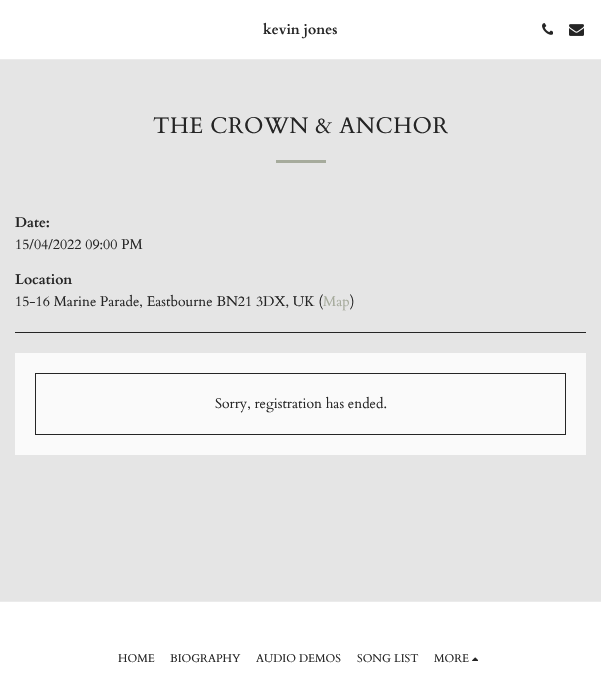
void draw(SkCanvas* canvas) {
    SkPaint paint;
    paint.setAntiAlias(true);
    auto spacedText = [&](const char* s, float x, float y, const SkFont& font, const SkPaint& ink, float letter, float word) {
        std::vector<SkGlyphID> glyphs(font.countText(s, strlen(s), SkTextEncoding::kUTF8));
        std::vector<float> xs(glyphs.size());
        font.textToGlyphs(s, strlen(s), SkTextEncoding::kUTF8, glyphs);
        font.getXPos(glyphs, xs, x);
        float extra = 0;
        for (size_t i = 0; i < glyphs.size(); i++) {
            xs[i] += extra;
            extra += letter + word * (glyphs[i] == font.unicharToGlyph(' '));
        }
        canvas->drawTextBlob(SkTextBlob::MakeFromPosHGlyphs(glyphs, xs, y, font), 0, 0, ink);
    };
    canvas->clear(0xFFE5E5E5);
    paint.setColor(0xFFFFFFFF);
    canvas->drawRect(SkRect::MakeXYWH(0, 0, 601, 59), paint);
    paint.setColor(0xFFEBEBEB);
    canvas->drawRect(SkRect::MakeXYWH(0, 59, 601, 1), paint);
    SkFont font1(fontMgr->matchFamilyStyle("Cardo", SkFontStyle::Bold()), 14);
    font1.setSubpixel(true);
    paint.setColor(0xFF252525);
    canvas->drawString("kevin jones", 263, 34, font1, paint);
    canvas->drawImageRect(SkImages::DeferredFromEncodedData(SkData::MakeFromFileName("img1.png")), SkRect::MakeXYWH(542, 23, 11, 12), SkSamplingOptions());
    canvas->drawImageRect(SkImages::DeferredFromEncodedData(SkData::MakeFromFileName("img2.png")), SkRect::MakeXYWH(569, 24, 15, 12), SkSamplingOptions());
    SkFont font2(fontMgr->matchFamilyStyle("Cardo", SkFontStyle::Normal()), 22.5f);
    font2.setSubpixel(true);
    spacedText("THE CROWN & ANCHOR", 153, 133, font2, paint, 0.5f, 0);
    paint.setColor(0xFFA6AB9C);
    canvas->drawRect(SkRect::MakeXYWH(276, 160, 50, 3), paint);
    paint.setColor(0xFF252525);
    canvas->drawString("Date:", 15, 227, font1, paint);
    SkFont font3(fontMgr->matchFamilyStyle("Cardo", SkFontStyle::Normal()), 14);
    font3.setSubpixel(true);
    canvas->drawString("15/04/2022 09:00 PM", 15, 249, font3, paint);
    canvas->drawString("Location", 15, 284, font1, paint);
    canvas->drawString("15-16 Marine Parade, Eastbourne BN21 3DX, UK (", 15, 306, font3, paint);
    paint.setColor(0xFFA6AB9C);
    canvas->drawString("Map", 323, 306, font3, paint);
    paint.setColor(0xFF252525);
    canvas->drawString(")", 350, 306, font3, paint);
    canvas->drawRect(SkRect::MakeXYWH(15, 332, 571, 1), paint);
    paint.setColor(0xFFFAFAFA);
    canvas->drawRect(SkRect::MakeXYWH(15, 353, 571, 102), paint);
    paint.setStyle(SkPaint::kStroke_Style);
    paint.setStrokeWidth(1);
    paint.setColor(0xFF252525);
    canvas->drawRect(SkRect::MakeXYWH(35.5f, 373.5f, 530, 61), paint);
    paint.setStyle(SkPaint::kFill_Style);
    canvas->drawString("Sorry, registration has ended.", 215, 408, font3, paint);
    paint.setColor(0xFFFFFFFF);
    canvas->drawRect(SkRect::MakeXYWH(0, 602, 601, 74), paint);
    paint.setColor(0xFFEBEBEB);
    canvas->drawRect(SkRect::MakeXYWH(0, 601, 601, 1), paint);
    SkFont font4(fontMgr->matchFamilyStyle("Cardo", SkFontStyle::Normal()), 11.25f);
    font4.setSubpixel(true);
    paint.setColor(0xFF252525);
    canvas->drawString("HOME", 118, 662, font4, paint);
    canvas->drawString("BIOGRAPHY", 170, 662, font4, paint);
    canvas->drawString("AUDIO DEMOS", 256, 662, font4, paint);
    canvas->drawString("SONG LIST", 357, 662, font4, paint);
    canvas->drawString("MORE", 434, 662, font4, paint);
    canvas->drawImageRect(SkImages::DeferredFromEncodedData(SkData::MakeFromFileName("img3.png")), SkRect::MakeXYWH(472, 657, 6, 4), SkSamplingOptions());
}
